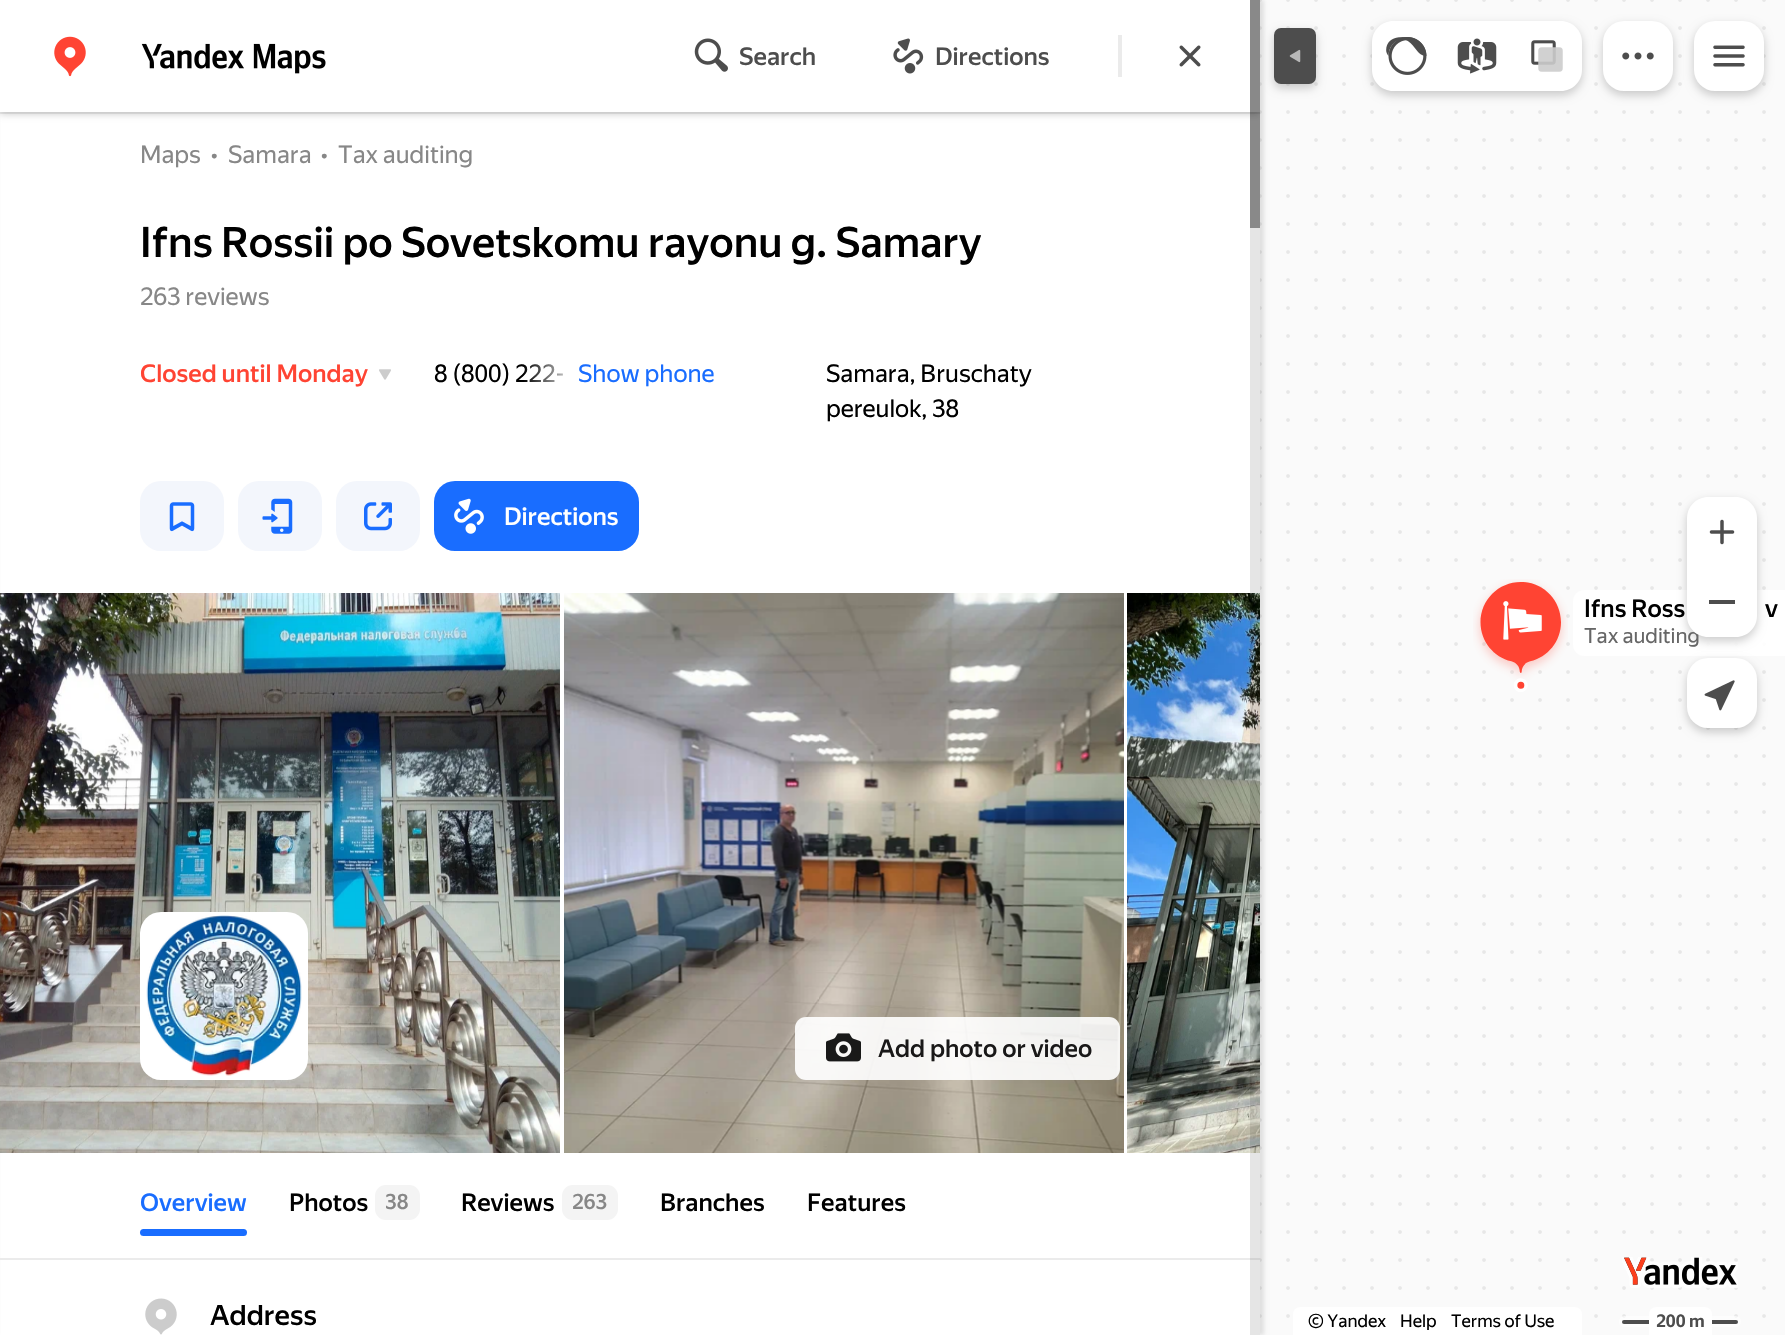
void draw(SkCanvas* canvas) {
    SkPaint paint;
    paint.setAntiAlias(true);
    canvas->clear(0xFFFFFFFF);
    canvas->drawImageRect(SkImages::DeferredFromEncodedData(SkData::MakeFromFileName("img1.png")), SkRect::MakeXYWH(1260, 0, 525, 1335), SkSamplingOptions());
    paint.setColor(0x1A000000);
    paint.setMaskFilter(SkMaskFilter::MakeBlur(kNormal_SkBlurStyle, 2));
    canvas->drawRect(SkRect::MakeXYWH(4, 0, 1260, 1335), paint);
    paint.setMaskFilter(nullptr);
    paint.setColor(0xFFFFFFFF);
    canvas->drawRect(SkRect::MakeXYWH(1, 114, 1259, 1221), paint);
    paint.setColor(0xFFEBEBEB);
    canvas->drawRect(SkRect::MakeXYWH(0, 112, 1260, 2), paint);
    canvas->save();
    canvas->clipRect(SkRect::MakeXYWH(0, 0, 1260, 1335));
    paint.setColor(0x33000000);
    paint.setMaskFilter(SkMaskFilter::MakeBlur(kNormal_SkBlurStyle, 3.5f));
    canvas->drawRect(SkRect::MakeXYWH(0, 107, 1260, 7), paint);
    paint.setMaskFilter(nullptr);
    canvas->restore();
    paint.setMaskFilter(SkMaskFilter::MakeBlur(kNormal_SkBlurStyle, 5));
    canvas->drawRoundRect(SkRect::MakeXYWH(1274, 32, 42, 56), 7, 7, paint);
    paint.setMaskFilter(nullptr);
    paint.setColor(0xFFFFFFFF);
    canvas->drawRect(SkRect::MakeXYWH(0, 0, 1260, 112), paint);
    canvas->drawImageRect(SkImages::DeferredFromEncodedData(SkData::MakeFromFileName("img2.png")), SkRect::MakeXYWH(54, 36, 32, 41), SkSamplingOptions());
    canvas->drawImageRect(SkImages::DeferredFromEncodedData(SkData::MakeFromFileName("img3.png")), SkRect::MakeXYWH(141, 43, 185, 31), SkSamplingOptions());
    canvas->drawImageRect(SkImages::DeferredFromEncodedData(SkData::MakeFromFileName("img4.png")), SkRect::MakeXYWH(694, 38, 34, 34), SkSamplingOptions());
    SkFont font1(fontMgr->matchFamilyStyle("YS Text", SkFontStyle(500, SkFontStyle::kNormal_Width, SkFontStyle::kUpright_Slant)), 24.5f);
    font1.setSubpixel(true);
    paint.setColor(0xFF4D4D4D);
    canvas->drawString("Search", 739, 65, font1, paint);
    canvas->drawImageRect(SkImages::DeferredFromEncodedData(SkData::MakeFromFileName("img5.png")), SkRect::MakeXYWH(893, 38, 31, 36), SkSamplingOptions());
    canvas->drawString("Directions", 935, 65, font1, paint);
    paint.setColor(0xFFEBEBEB);
    canvas->drawRect(SkRect::MakeXYWH(1118, 35, 4, 42), paint);
    canvas->drawImageRect(SkImages::DeferredFromEncodedData(SkData::MakeFromFileName("img6.png")), SkRect::MakeXYWH(1179, 45, 22, 22), SkSamplingOptions());
    SkFont font2(fontMgr->matchFamilyStyle("YS Text", SkFontStyle::Normal()), 24.5f);
    font2.setSubpixel(true);
    paint.setColor(0xFF878787);
    canvas->drawString("Maps", 140, 163, font2, paint);
    canvas->drawString("•", 211, 163, font2, paint);
    canvas->drawString("Samara", 228, 163, font2, paint);
    canvas->drawString("•", 321, 163, font2, paint);
    canvas->drawString("Tax auditing", 338, 163, font2, paint);
    SkFont font3(fontMgr->matchFamilyStyle("YS Text", SkFontStyle(500, SkFontStyle::kNormal_Width, SkFontStyle::kUpright_Slant)), 42);
    font3.setSubpixel(true);
    paint.setColor(0xFF000000);
    canvas->drawString("Ifns Rossii po Sovetskomu rayonu g. Samary", 140, 257, font3, paint);
    paint.setColor(0xFF878787);
    canvas->drawString("263 reviews", 140, 305, font2, paint);
    paint.setColor(0xFFFF4433);
    canvas->drawString("Closed until Monday", 140, 382, font1, paint);
    canvas->drawImageRect(SkImages::DeferredFromEncodedData(SkData::MakeFromFileName("img7.png")), SkRect::MakeXYWH(379, 369, 12, 11), SkSamplingOptions());
    paint.setColor(0xFF000000);
    canvas->drawString("8 (800) 222-", 434, 382, font2, paint);
    {
        const SkColor colors[] = {0x00FFFFFF, 0xFFFFFFFF};
        const float stops[] = {0, 1};
        const SkPoint ends[] = {{523, 373}, {579, 373}};
        paint.setShader(SkGradientShader::MakeLinear(ends, colors, stops, 2, SkTileMode::kClamp));
        paint.setAlpha(255);
    }
    canvas->drawRect(SkRect::MakeXYWH(524, 364, 40, 18), paint);
    paint.setShader(nullptr);
    paint.setColor(0xFF196DFF);
    canvas->drawString("Show phone", 578, 382, font2, paint);
    paint.setColor(0xFF000000);
    canvas->drawString("Samara, Bruschaty", 826, 382, font2, paint);
    canvas->drawString("pereulok, 38", 826, 417, font2, paint);
    paint.setColor(0xFFF3F6FC);
    canvas->drawRoundRect(SkRect::MakeXYWH(140, 481, 84, 70), 21, 21, paint);
    canvas->drawImageRect(SkImages::DeferredFromEncodedData(SkData::MakeFromFileName("img8.png")), SkRect::MakeXYWH(169, 502, 26, 30), SkSamplingOptions());
    canvas->drawRoundRect(SkRect::MakeXYWH(238, 481, 84, 70), 21, 21, paint);
    canvas->drawImageRect(SkImages::DeferredFromEncodedData(SkData::MakeFromFileName("img9.png")), SkRect::MakeXYWH(262, 498, 31, 36), SkSamplingOptions());
    canvas->drawRoundRect(SkRect::MakeXYWH(336, 481, 84, 70), 21, 21, paint);
    canvas->drawImageRect(SkImages::DeferredFromEncodedData(SkData::MakeFromFileName("img10.png")), SkRect::MakeXYWH(364, 502, 28, 29), SkSamplingOptions());
    paint.setColor(0xFF196DFF);
    canvas->drawRoundRect(SkRect::MakeXYWH(434, 481, 205, 70), 21, 21, paint);
    canvas->drawImageRect(SkImages::DeferredFromEncodedData(SkData::MakeFromFileName("img11.png")), SkRect::MakeXYWH(454, 498, 30, 36), SkSamplingOptions());
    paint.setColor(0xFFFFFFFF);
    canvas->drawString("Directions", 504, 525, font1, paint);
    canvas->drawImageRect(SkImages::DeferredFromEncodedData(SkData::MakeFromFileName("img12.png")), SkRect::MakeXYWH(0, 593, 560, 560), SkSamplingOptions());
    canvas->drawImageRect(SkImages::DeferredFromEncodedData(SkData::MakeFromFileName("img13.png")), SkRect::MakeXYWH(564, 593, 560, 560), SkSamplingOptions());
    canvas->drawImageRect(SkImages::DeferredFromEncodedData(SkData::MakeFromFileName("img14.png")), SkRect::MakeXYWH(1127, 593, 133, 560), SkSamplingOptions());
    canvas->drawRoundRect(SkRect::MakeXYWH(140, 912, 168, 168), 21, 21, paint);
    canvas->drawImageRect(SkImages::DeferredFromEncodedData(SkData::MakeFromFileName("img15.png")), SkRect::MakeXYWH(146, 915, 156, 161), SkSamplingOptions());
    paint.setColor(0xE6FFFFFF);
    canvas->drawRoundRect(SkRect::MakeXYWH(795, 1017, 325, 63), 11, 11, paint);
    canvas->drawImageRect(SkImages::DeferredFromEncodedData(SkData::MakeFromFileName("img16.png")), SkRect::MakeXYWH(826, 1033, 35, 29), SkSamplingOptions());
    paint.setColor(0xFF191818);
    canvas->drawString("Add photo or video", 878, 1057, font1, paint);
    paint.setColor(0xFF196DFF);
    canvas->drawString("Overview", 140, 1211, font1, paint);
    paint.setColor(0xFF000000);
    canvas->drawString("Photos", 289, 1211, font1, paint);
    paint.setColor(0xFFF4F4F4);
    canvas->drawRoundRect(SkRect::MakeXYWH(375, 1185, 45, 35), 11, 11, paint);
    SkFont font4(fontMgr->matchFamilyStyle("YS Text", SkFontStyle(500, SkFontStyle::kNormal_Width, SkFontStyle::kUpright_Slant)), 21);
    font4.setSubpixel(true);
    paint.setColor(0xFF878787);
    canvas->drawString("38", 385, 1209, font4, paint);
    paint.setColor(0xFF000000);
    canvas->drawString("Reviews", 461, 1211, font1, paint);
    paint.setColor(0xFFF4F4F4);
    canvas->drawRoundRect(SkRect::MakeXYWH(562, 1185, 56, 35), 11, 11, paint);
    paint.setColor(0xFF878787);
    canvas->drawString("263", 572, 1209, font4, paint);
    paint.setColor(0xFF000000);
    canvas->drawString("Branches", 660, 1211, font1, paint);
    canvas->drawString("Features", 807, 1211, font1, paint);
    paint.setColor(0xFF196DFF);
    canvas->drawRoundRect(SkRect::MakeXYWH(140, 1229, 107, 7), 3.5f, 3.5f, paint);
    paint.setColor(0xFFEBEBEB);
    canvas->drawRect(SkRect::MakeXYWH(0, 1258, 1260, 2), paint);
    canvas->drawImageRect(SkImages::DeferredFromEncodedData(SkData::MakeFromFileName("img17.png")), SkRect::MakeXYWH(145, 1298, 32, 37), SkSamplingOptions());
    SkFont font5(fontMgr->matchFamilyStyle("YS Text", SkFontStyle(500, SkFontStyle::kNormal_Width, SkFontStyle::kUpright_Slant)), 28);
    font5.setSubpixel(true);
    paint.setColor(0xFF000000);
    canvas->drawString("Address", 210, 1325, font5, paint);
    paint.setColor(0x1A000000);
    canvas->drawRect(SkRect::MakeXYWH(1250, 0, 10, 1335), paint);
    paint.setColor(0x66000000);
    canvas->drawRect(SkRect::MakeXYWH(1250, 0, 10, 228), paint);
    paint.setColor(0xFF4D4D4D);
    canvas->drawRoundRect(SkRect::MakeXYWH(1274, 28, 42, 56), 7, 7, paint);
    canvas->drawImageRect(SkImages::DeferredFromEncodedData(SkData::MakeFromFileName("img18.png")), SkRect::MakeXYWH(1289, 49, 12, 14), SkSamplingOptions());
    paint.setColor(0x33000000);
    paint.setMaskFilter(SkMaskFilter::MakeBlur(kNormal_SkBlurStyle, 5));
    canvas->drawRoundRect(SkRect::MakeXYWH(1372, 25, 210, 70), 21, 21, paint);
    paint.setMaskFilter(nullptr);
    paint.setColor(0xFFFFFFFF);
    canvas->drawPath(SkPathBuilder().moveTo(1393, 21).lineTo(1442, 21).lineTo(1442, 91).lineTo(1393, 91).cubicTo(1381.5f, 91, 1372, 81.5f, 1372, 70).lineTo(1372, 42).cubicTo(1372, 30.5f, 1381.5f, 21, 1393, 21).close().detach(), paint);
    canvas->drawImageRect(SkImages::DeferredFromEncodedData(SkData::MakeFromFileName("img19.png")), SkRect::MakeXYWH(1386, 37, 41, 38), SkSamplingOptions());
    canvas->drawRect(SkRect::MakeXYWH(1442, 21, 70, 70), paint);
    canvas->drawImageRect(SkImages::DeferredFromEncodedData(SkData::MakeFromFileName("img20.png")), SkRect::MakeXYWH(1457, 38, 40, 36), SkSamplingOptions());
    canvas->drawPath(SkPathBuilder().moveTo(1512, 21).lineTo(1561, 21).cubicTo(1572.5f, 21, 1582, 30.5f, 1582, 42).lineTo(1582, 70).cubicTo(1582, 81.5f, 1572.5f, 91, 1561, 91).lineTo(1512, 91).close().detach(), paint);
    canvas->drawImageRect(SkImages::DeferredFromEncodedData(SkData::MakeFromFileName("img21.png")), SkRect::MakeXYWH(1531, 40, 32, 32), SkSamplingOptions());
    paint.setColor(0x33000000);
    paint.setMaskFilter(SkMaskFilter::MakeBlur(kNormal_SkBlurStyle, 5));
    canvas->drawRoundRect(SkRect::MakeXYWH(1603, 25, 70, 70), 21, 21, paint);
    paint.setMaskFilter(nullptr);
    paint.setColor(0xFFFFFFFF);
    canvas->drawRoundRect(SkRect::MakeXYWH(1603, 21, 70, 70), 21, 21, paint);
    canvas->drawImageRect(SkImages::DeferredFromEncodedData(SkData::MakeFromFileName("img22.png")), SkRect::MakeXYWH(1622, 52, 32, 8), SkSamplingOptions());
    paint.setColor(0x33000000);
    paint.setMaskFilter(SkMaskFilter::MakeBlur(kNormal_SkBlurStyle, 5));
    canvas->drawRoundRect(SkRect::MakeXYWH(1694, 25, 70, 70), 21, 21, paint);
    paint.setMaskFilter(nullptr);
    paint.setColor(0xFFFFFFFF);
    canvas->drawRoundRect(SkRect::MakeXYWH(1694, 21, 70, 70), 21, 21, paint);
    canvas->drawImageRect(SkImages::DeferredFromEncodedData(SkData::MakeFromFileName("img23.png")), SkRect::MakeXYWH(1713, 45, 32, 22), SkSamplingOptions());
    paint.setColor(0xE6FFFFFF);
    canvas->drawPath(SkPathBuilder().moveTo(1584, 590).lineTo(1785, 590).lineTo(1785, 656).lineTo(1584, 656).cubicTo(1578, 656, 1573, 651, 1573, 645).lineTo(1573, 601).cubicTo(1573, 595, 1578, 590, 1584, 590).close().detach(), paint);
    paint.setColor(0x33000000);
    paint.setMaskFilter(SkMaskFilter::MakeBlur(kNormal_SkBlurStyle, 5));
    canvas->drawRoundRect(SkRect::MakeXYWH(1687, 501, 70, 140), 21, 21, paint);
    paint.setMaskFilter(nullptr);
    paint.setColor(0xFFFFFFFF);
    canvas->drawPath(SkPathBuilder().moveTo(1708, 497).lineTo(1736, 497).cubicTo(1747.5f, 497, 1757, 506.5f, 1757, 518).lineTo(1757, 567).lineTo(1687, 567).lineTo(1687, 518).cubicTo(1687, 506.5f, 1696.5f, 497, 1708, 497).close().detach(), paint);
    canvas->drawImageRect(SkImages::DeferredFromEncodedData(SkData::MakeFromFileName("img24.png")), SkRect::MakeXYWH(1709, 519, 26, 26), SkSamplingOptions());
    SkFont font6(fontMgr->matchFamilyStyle("YS Text", SkFontStyle::Normal()), 21);
    font6.setSubpixel(true);
    paint.setColor(0xFF666666);
    canvas->drawString("Tax auditing", 1584, 643, font6, paint);
    paint.setColor(0xFFFFFFFF);
    canvas->drawPath(SkPathBuilder().moveTo(1687, 567).lineTo(1757, 567).lineTo(1757, 616).cubicTo(1757, 627.5f, 1747.5f, 637, 1736, 637).lineTo(1708, 637).cubicTo(1696.5f, 637, 1687, 627.5f, 1687, 616).close().detach(), paint);
    paint.setColor(0xFF4D4D4D);
    canvas->drawRect(SkRect::MakeXYWH(1709, 600, 26, 4), paint);
    paint.setColor(0x33000000);
    paint.setMaskFilter(SkMaskFilter::MakeBlur(kNormal_SkBlurStyle, 5));
    canvas->drawRoundRect(SkRect::MakeXYWH(1687, 662, 70, 70), 21, 21, paint);
    paint.setMaskFilter(nullptr);
    paint.setColor(0xFFFFFFFF);
    canvas->drawRoundRect(SkRect::MakeXYWH(1687, 658, 70, 70), 21, 21, paint);
    canvas->drawImageRect(SkImages::DeferredFromEncodedData(SkData::MakeFromFileName("img25.png")), SkRect::MakeXYWH(1704, 680, 31, 31), SkSamplingOptions());
    canvas->drawImageRect(SkImages::DeferredFromEncodedData(SkData::MakeFromFileName("img26.png")), SkRect::MakeXYWH(1622, 1257, 116, 32), SkSamplingOptions());
    canvas->drawPath(SkPathBuilder().moveTo(1300, 1307).lineTo(1575, 1307).cubicTo(1579, 1307, 1582, 1310, 1582, 1314).lineTo(1582, 1335).lineTo(1293, 1335).lineTo(1293, 1314).cubicTo(1293, 1310, 1296, 1307, 1300, 1307).close().detach(), paint);
    SkFont font7(fontMgr->matchFamilyStyle("YS Text", SkFontStyle::Normal()), 17.5f);
    font7.setSubpixel(true);
    paint.setColor(0xFF000000);
    canvas->drawString("© Yandex", 1308, 1327, font7, paint);
    canvas->drawString("Help", 1400, 1327, font7, paint);
    canvas->drawString("Terms of Use", 1451, 1327, font7, paint);
    paint.setColor(0x99FFFFFF);
    canvas->drawRoundRect(SkRect::MakeXYWH(1619, 1316, 122, 11), 5.5f, 5.5f, paint);
    paint.setColor(0xFF4D4D4D);
    canvas->drawRoundRect(SkRect::MakeXYWH(1622, 1320, 116, 4), 2, 2, paint);
    paint.setColor(0xFFFFFFFF);
    canvas->drawPath(SkPathBuilder().moveTo(1656, 1307).lineTo(1705, 1307).cubicTo(1709, 1307, 1712, 1310, 1712, 1314).lineTo(1712, 1335).lineTo(1649, 1335).lineTo(1649, 1314).cubicTo(1649, 1310, 1652, 1307, 1656, 1307).close().detach(), paint);
    SkFont font8(fontMgr->matchFamilyStyle("YS Text", SkFontStyle::Bold()), 17.5f);
    font8.setSubpixel(true);
    paint.setColor(0xFF4D4D4D);
    canvas->drawString("200 m", 1656, 1327, font8, paint);
    canvas->drawImageRect(SkImages::DeferredFromEncodedData(SkData::MakeFromFileName("img27.png")), SkRect::MakeXYWH(1473, 579, 95, 113), SkSamplingOptions());
    canvas->drawImageRect(SkImages::DeferredFromEncodedData(SkData::MakeFromFileName("img28.png")), SkRect::MakeXYWH(1503, 601, 39, 39), SkSamplingOptions());
    paint.setColor(0xFF000000);
    canvas->drawString("Ifns Ross", 1584, 617, font1, paint);
    canvas->drawString("v", 1765, 617, font1, paint);
}
